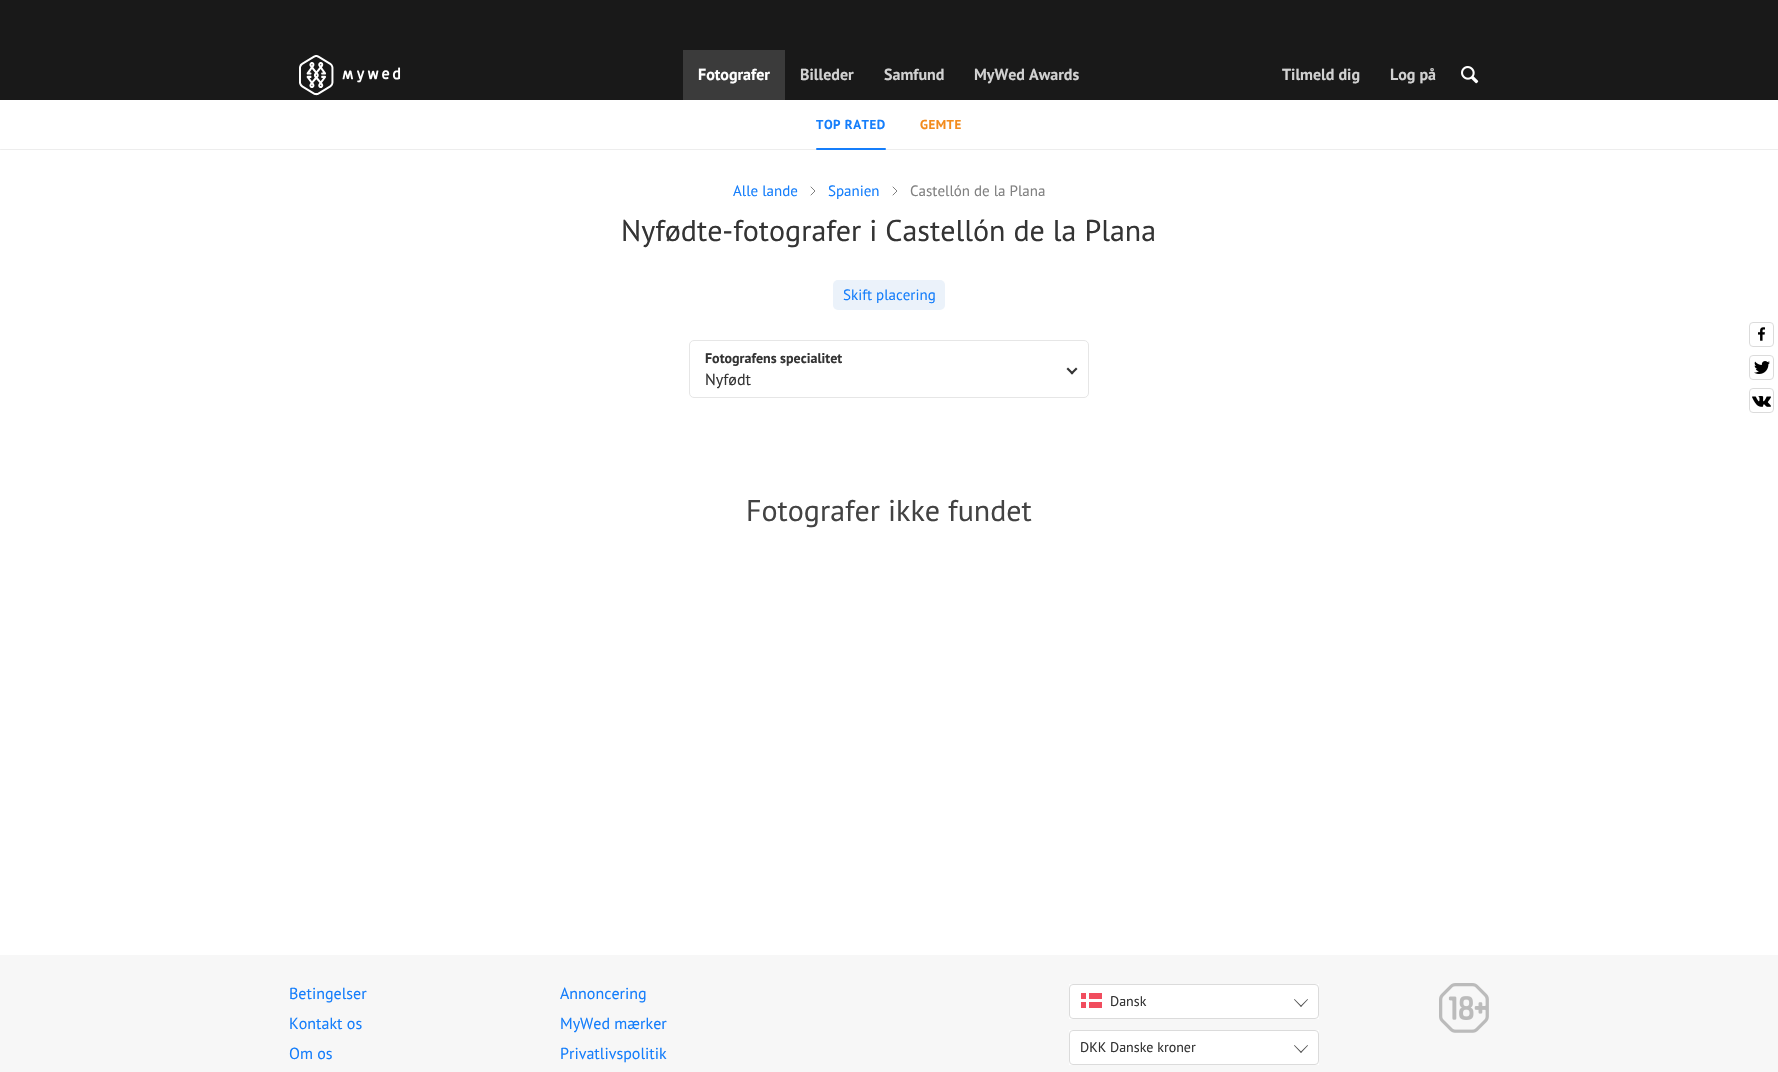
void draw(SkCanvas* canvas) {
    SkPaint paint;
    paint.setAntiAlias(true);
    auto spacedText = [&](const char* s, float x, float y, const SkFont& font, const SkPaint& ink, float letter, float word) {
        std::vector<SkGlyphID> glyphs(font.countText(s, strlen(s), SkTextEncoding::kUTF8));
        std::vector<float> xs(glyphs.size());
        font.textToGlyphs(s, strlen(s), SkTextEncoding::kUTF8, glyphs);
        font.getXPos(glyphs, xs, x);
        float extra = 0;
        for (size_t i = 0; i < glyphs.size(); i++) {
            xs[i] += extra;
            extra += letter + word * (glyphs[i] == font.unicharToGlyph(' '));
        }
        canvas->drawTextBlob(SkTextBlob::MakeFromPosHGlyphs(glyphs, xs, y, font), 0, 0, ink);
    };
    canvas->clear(0xFFFFFFFF);
    paint.setColor(0xFF191919);
    canvas->drawRect(SkRect::MakeXYWH(0, 0, 1778, 100), paint);
    canvas->drawImageRect(SkImages::DeferredFromEncodedData(SkData::MakeFromFileName("img1.png")), SkRect::MakeXYWH(299, 55, 102, 41), SkSamplingOptions());
    paint.setColor(0xFF3B3B3B);
    canvas->drawRect(SkRect::MakeXYWH(683, 50, 102, 50), paint);
    SkFont font1(fontMgr->matchFamilyStyle("PT Sans", SkFontStyle::Bold()), 16);
    font1.setSubpixel(true);
    paint.setColor(0xFFFFFFFF);
    canvas->drawString("Fotografer", 698, 80, font1, paint);
    paint.setColor(0xFFD1D1D1);
    canvas->drawString("Billeder", 800, 80, font1, paint);
    canvas->drawString("Samfund", 884, 80, font1, paint);
    canvas->drawString("MyWed Awards", 974, 80, font1, paint);
    canvas->drawString("Tilmeld dig", 1282, 80, font1, paint);
    canvas->drawString("Log på", 1390, 80, font1, paint);
    canvas->drawImageRect(SkImages::DeferredFromEncodedData(SkData::MakeFromFileName("img2.png")), SkRect::MakeXYWH(1461, 66, 18, 18), SkSamplingOptions());
    SkFont font2(fontMgr->matchFamilyStyle("PT Sans", SkFontStyle::Bold()), 13);
    font2.setSubpixel(true);
    paint.setColor(0xFF157EFB);
    spacedText("TOP RATED", 816, 129, font2, paint, 0.5f, 0);
    paint.setColor(0xFFEDEDED);
    canvas->drawRoundRect(SkRect::MakeXYWH(0, 149, 1778, 1), 0.5f, 0.5f, paint);
    paint.setColor(0xFF157EFB);
    canvas->drawRoundRect(SkRect::MakeXYWH(816, 148, 70, 2), 1, 1, paint);
    paint.setColor(0xFFF38B1C);
    spacedText("GEMTE", 920, 129, font2, paint, 0.5f, 0);
    SkFont font3(fontMgr->matchFamilyStyle("PT Sans", SkFontStyle::Normal()), 15);
    font3.setSubpixel(true);
    paint.setColor(0xFF157EFB);
    canvas->drawString("Alle lande", 733, 196, font3, paint);
    paint.setStyle(SkPaint::kStroke_Style);
    paint.setStrokeWidth(1);
    paint.setStrokeCap(SkPaint::kRound_Cap);
    paint.setStrokeJoin(SkPaint::kRound_Join);
    paint.setColor(0xFF808080);
    canvas->drawPath(SkPathBuilder().moveTo(811, 187).lineTo(815, 191).lineTo(811, 195).detach(), paint);
    paint.setStyle(SkPaint::kFill_Style);
    paint.setColor(0xFF157EFB);
    canvas->drawString("Spanien", 828, 196, font3, paint);
    paint.setStyle(SkPaint::kStroke_Style);
    paint.setColor(0xFF808080);
    canvas->drawPath(SkPathBuilder().moveTo(893, 187).lineTo(897, 191).lineTo(893, 195).detach(), paint);
    paint.setStyle(SkPaint::kFill_Style);
    canvas->drawString("Castellón de la Plana", 910, 196, font3, paint);
    SkFont font4(fontMgr->matchFamilyStyle("PT Sans", SkFontStyle::Normal()), 30);
    font4.setSubpixel(true);
    paint.setColor(0xFF343434);
    canvas->drawString("Nyfødte-fotografer i Castellón de la Plana", 621, 241, font4, paint);
    paint.setColor(0xFFEBF2FA);
    canvas->drawRoundRect(SkRect::MakeXYWH(833, 280, 112, 30), 5, 5, paint);
    paint.setColor(0xFF157EFB);
    canvas->drawString("Skift placering", 843, 300, font3, paint);
    paint.setStyle(SkPaint::kStroke_Style);
    paint.setStrokeCap(SkPaint::kButt_Cap);
    paint.setStrokeJoin(SkPaint::kMiter_Join);
    paint.setColor(0xFFE6E6E6);
    canvas->drawRoundRect(SkRect::MakeXYWH(689.5f, 340.5f, 399, 57), 4.5f, 4.5f, paint);
    SkFont font5(fontMgr->matchFamilyStyle("PT Sans", SkFontStyle::Bold()), 14);
    font5.setSubpixel(true);
    paint.setStyle(SkPaint::kFill_Style);
    paint.setColor(0xFF343434);
    canvas->drawString("Fotografens specialitet", 705, 363, font5, paint);
    canvas->drawPath(SkPathBuilder().moveTo(1070.5f, 373).lineTo(1076, 367.5f).lineTo(1077.5f, 369).lineTo(1072, 374.5f).close().detach(), paint);
    canvas->drawPath(SkPathBuilder().moveTo(1066.5f, 369).lineTo(1068, 367.5f).lineTo(1073.5f, 373).lineTo(1072, 374.5f).close().detach(), paint);
    SkFont font6(fontMgr->matchFamilyStyle("PT Sans", SkFontStyle::Normal()), 16);
    font6.setSubpixel(true);
    canvas->drawString("Nyfødt", 705, 385, font6, paint);
    paint.setColor(0xFF434343);
    canvas->drawString("Fotografer ikke fundet", 746, 521, font4, paint);
    paint.setStyle(SkPaint::kStroke_Style);
    paint.setColor(0xFFDBDBDB);
    canvas->drawRoundRect(SkRect::MakeXYWH(1749.5f, 322.5f, 24, 24), 3.5f, 3.5f, paint);
    canvas->drawImageRect(SkImages::DeferredFromEncodedData(SkData::MakeFromFileName("img3.png")), SkRect::MakeXYWH(1758, 327, 7, 14), SkSamplingOptions());
    canvas->drawRoundRect(SkRect::MakeXYWH(1749.5f, 355.5f, 24, 24), 3.5f, 3.5f, paint);
    canvas->drawImageRect(SkImages::DeferredFromEncodedData(SkData::MakeFromFileName("img4.png")), SkRect::MakeXYWH(1754, 361, 16, 13), SkSamplingOptions());
    canvas->drawRoundRect(SkRect::MakeXYWH(1749.5f, 388.5f, 24, 24), 3.5f, 3.5f, paint);
    canvas->drawImageRect(SkImages::DeferredFromEncodedData(SkData::MakeFromFileName("img5.png")), SkRect::MakeXYWH(1752, 396, 19, 11), SkSamplingOptions());
    paint.setStyle(SkPaint::kFill_Style);
    paint.setColor(0xFFF7F7F7);
    canvas->drawRect(SkRect::MakeXYWH(0, 955, 1778, 117), paint);
    paint.setColor(0xFF157EFB);
    canvas->drawString("Betingelser", 289, 999, font6, paint);
    canvas->drawString("Annoncering", 560, 999, font6, paint);
    canvas->drawString("Kontakt os", 289, 1029, font6, paint);
    canvas->drawString("MyWed mærker", 560, 1029, font6, paint);
    canvas->drawString("Om os", 289, 1059, font6, paint);
    canvas->drawString("Privatlivspolitik", 560, 1059, font6, paint);
    paint.setColor(0xFFFFFFFF);
    canvas->drawRect(SkRect::MakeXYWH(1069, 984, 250, 35), paint);
    paint.setStyle(SkPaint::kStroke_Style);
    paint.setColor(0xFFDBDBDB);
    canvas->drawRoundRect(SkRect::MakeXYWH(1069.5f, 984.5f, 249, 34), 3.5f, 3.5f, paint);
    canvas->drawImageRect(SkImages::DeferredFromEncodedData(SkData::MakeFromFileName("img6.png")), SkRect::MakeXYWH(1081, 993, 21, 15), SkSamplingOptions());
    SkFont font7(fontMgr->matchFamilyStyle("PT Sans", SkFontStyle::Normal()), 14);
    font7.setSubpixel(true);
    paint.setStyle(SkPaint::kFill_Style);
    paint.setColor(0xFF343434);
    canvas->drawString("Dansk", 1110, 1006, font7, paint);
    paint.setColor(0xFF4E4E4E);
    canvas->drawPath(SkPathBuilder().moveTo(1300.5f, 1006).lineTo(1307.5f, 999).lineTo(1308, 999.5f).lineTo(1301, 1007).close().detach(), paint);
    canvas->drawPath(SkPathBuilder().moveTo(1294, 999.5f).lineTo(1294.5f, 999).lineTo(1301.5f, 1006).lineTo(1301, 1007).close().detach(), paint);
    paint.setColor(0xFFFFFFFF);
    canvas->drawRect(SkRect::MakeXYWH(1069, 1030, 250, 35), paint);
    paint.setStyle(SkPaint::kStroke_Style);
    paint.setColor(0xFFDBDBDB);
    canvas->drawRoundRect(SkRect::MakeXYWH(1069.5f, 1030.5f, 249, 34), 3.5f, 3.5f, paint);
    paint.setStyle(SkPaint::kFill_Style);
    paint.setColor(0xFF343434);
    canvas->drawString("DKK Danske kroner", 1080, 1052, font7, paint);
    paint.setColor(0xFF4E4E4E);
    canvas->drawPath(SkPathBuilder().moveTo(1300.5f, 1052).lineTo(1307.5f, 1045).lineTo(1308, 1045.5f).lineTo(1301, 1053).close().detach(), paint);
    canvas->drawPath(SkPathBuilder().moveTo(1294, 1045.5f).lineTo(1294.5f, 1045).lineTo(1301.5f, 1052).lineTo(1301, 1053).close().detach(), paint);
    canvas->drawImageRect(SkImages::DeferredFromEncodedData(SkData::MakeFromFileName("img7.png")), SkRect::MakeXYWH(1439, 983, 50, 50), SkSamplingOptions());
}
